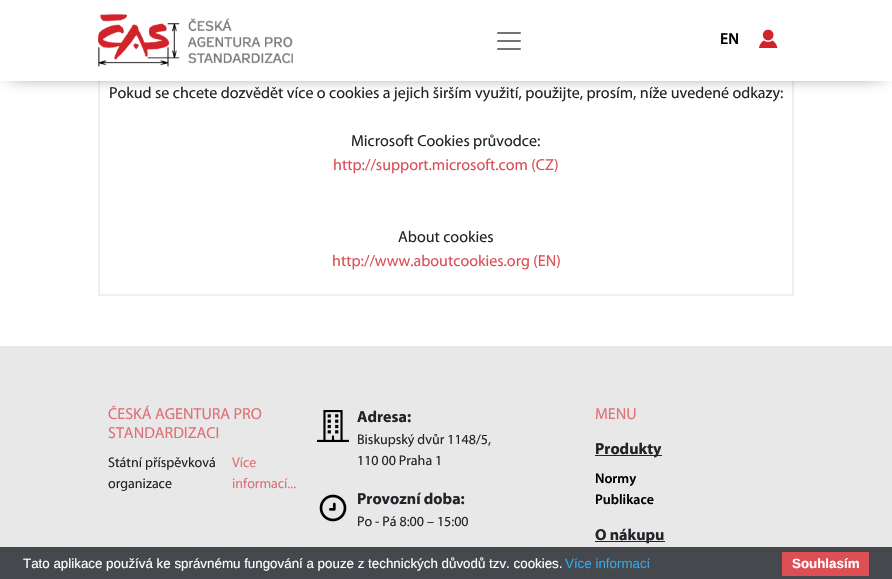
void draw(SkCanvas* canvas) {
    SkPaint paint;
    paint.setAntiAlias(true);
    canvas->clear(0xFFFFFFFF);
    paint.setStyle(SkPaint::kStroke_Style);
    paint.setStrokeWidth(2);
    paint.setColor(0xFFEFEFEF);
    canvas->drawRect(SkRect::MakeXYWH(99, -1, 694, 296), paint);
    paint.setStyle(SkPaint::kFill_Style);
    paint.setColor(0xFF000000);
    paint.setMaskFilter(SkMaskFilter::MakeBlur(kNormal_SkBlurStyle, 10));
    canvas->drawRect(SkRect::MakeXYWH(10, 10, 872, 61), paint);
    paint.setMaskFilter(nullptr);
    paint.setColor(0xFFFFFFFF);
    canvas->drawRect(SkRect::MakeXYWH(0, 0, 892, 81), paint);
    canvas->drawImageRect(SkImages::DeferredFromEncodedData(SkData::MakeFromFileName("img1.png")), SkRect::MakeXYWH(98, 13, 195, 54), SkSamplingOptions());
    canvas->drawImageRect(SkImages::DeferredFromEncodedData(SkData::MakeFromFileName("img2.png")), SkRect::MakeXYWH(497, 32, 24, 18), SkSamplingOptions());
    SkFont font1(fontMgr->matchFamilyStyle("Myriad", SkFontStyle(600, SkFontStyle::kNormal_Width, SkFontStyle::kUpright_Slant)), 16);
    font1.setSubpixel(true);
    paint.setColor(0xFF000000);
    canvas->drawString("EN", 720, 44, font1, paint);
    canvas->drawImageRect(SkImages::DeferredFromEncodedData(SkData::MakeFromFileName("img3.png")), SkRect::MakeXYWH(759, 29, 19, 19), SkSamplingOptions());
    SkFont font2(fontMgr->matchFamilyStyle("Myriad", SkFontStyle::Normal()), 16);
    font2.setSubpixel(true);
    paint.setColor(0xFF212529);
    canvas->drawString("Pokud se chcete dozvědět více o cookies a jejich širším využití, použijte, prosím, níže uvedené odkazy:", 109, 98, font2, paint);
    canvas->drawString("Microsoft Cookies průvodce:", 351, 146, font2, paint);
    paint.setColor(0xFFDB4F55);
    canvas->drawString("http://support.microsoft.com (CZ)", 333, 170, font2, paint);
    paint.setColor(0xFF212529);
    canvas->drawString("About cookies", 398, 242, font2, paint);
    paint.setColor(0xFFDB4F55);
    canvas->drawString("http://www.aboutcookies.org (EN)", 332, 266, font2, paint);
    paint.setColor(0xFFE8E8E8);
    canvas->drawRect(SkRect::MakeXYWH(0, 346, 892, 201), paint);
    paint.setColor(0xFFDE7176);
    canvas->drawString("ČESKÁ AGENTURA PRO", 108, 419, font2, paint);
    canvas->drawString("STANDARDIZACI", 108, 438, font2, paint);
    SkFont font3(fontMgr->matchFamilyStyle("Myriad", SkFontStyle::Normal()), 14);
    font3.setSubpixel(true);
    paint.setColor(0xFF212529);
    canvas->drawString("Státní příspěvková", 108, 467, font3, paint);
    canvas->drawString("organizace", 108, 488, font3, paint);
    paint.setColor(0xFFDE7176);
    canvas->drawString("Více", 232, 467, font3, paint);
    canvas->drawString("informací...", 232, 488, font3, paint);
    canvas->drawImageRect(SkImages::DeferredFromEncodedData(SkData::MakeFromFileName("img4.png")), SkRect::MakeXYWH(317, 410, 32, 32), SkSamplingOptions());
    SkFont font4(fontMgr->matchFamilyStyle("Myriad", SkFontStyle::Bold()), 16);
    font4.setSubpixel(true);
    paint.setColor(0xFF212529);
    canvas->drawString("Adresa:", 357, 422, font4, paint);
    canvas->drawString("Biskupský dvůr 1148/5,", 357, 444, font3, paint);
    canvas->drawString("110 00 Praha 1", 357, 465, font3, paint);
    canvas->drawImageRect(SkImages::DeferredFromEncodedData(SkData::MakeFromFileName("img5.png")), SkRect::MakeXYWH(319, 494, 28, 28), SkSamplingOptions());
    canvas->drawString("Provozní doba:", 357, 504, font4, paint);
    canvas->drawString("Po - Pá 8:00 – 15:00", 357, 526, font3, paint);
    paint.setColor(0xFFDE7176);
    canvas->drawString("MENU", 595, 419, font2, paint);
    paint.setColor(0xFF212529);
    canvas->drawRect(SkRect::MakeXYWH(595, 455, 67, 1), paint);
    canvas->drawString("Produkty", 595, 454, font4, paint);
    SkFont font5(fontMgr->matchFamilyStyle("Myriad", SkFontStyle(600, SkFontStyle::kNormal_Width, SkFontStyle::kUpright_Slant)), 14);
    font5.setSubpixel(true);
    paint.setColor(0xFF000000);
    canvas->drawString("Normy", 595, 483, font5, paint);
    canvas->drawString("Publikace", 595, 504, font5, paint);
    paint.setColor(0xFF212529);
    canvas->drawRect(SkRect::MakeXYWH(595, 541, 70, 1), paint);
    canvas->drawString("O nákupu", 595, 540, font4, paint);
    paint.setColor(0xFF45484D);
    canvas->drawRect(SkRect::MakeXYWH(0, 547, 892, 32), paint);
    SkFont font6(fontMgr->matchFamilyStyle("Liberation Sans", SkFontStyle::Normal()), 13.35f);
    font6.setSubpixel(true);
    paint.setColor(0xFFFFFFFF);
    canvas->drawString("Tato aplikace používá ke správnému fungování a pouze z technických důvodů tzv. cookies.", 23, 568, font6, paint);
    paint.setColor(0xFF31A8F0);
    canvas->drawString("Více informací", 565, 568, font6, paint);
    paint.setColor(0xFFDB4F55);
    canvas->drawRect(SkRect::MakeXYWH(782, 552, 87, 24), paint);
    SkFont font7(fontMgr->matchFamilyStyle("Liberation Sans", SkFontStyle::Bold()), 13.35f);
    font7.setSubpixel(true);
    paint.setColor(0xFFFFFFFF);
    canvas->drawString("Souhlasím", 792, 568, font7, paint);
}
